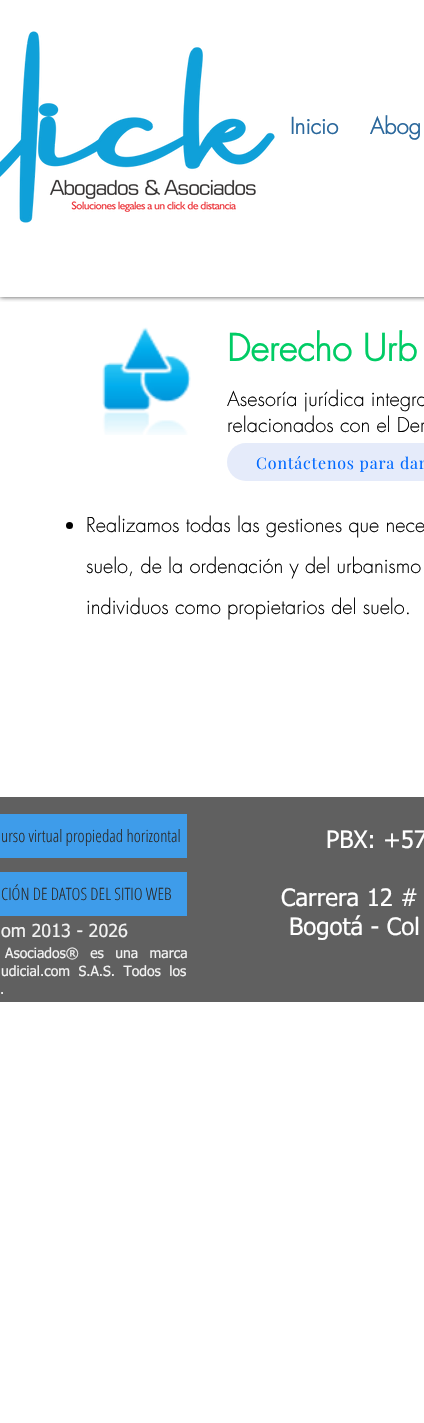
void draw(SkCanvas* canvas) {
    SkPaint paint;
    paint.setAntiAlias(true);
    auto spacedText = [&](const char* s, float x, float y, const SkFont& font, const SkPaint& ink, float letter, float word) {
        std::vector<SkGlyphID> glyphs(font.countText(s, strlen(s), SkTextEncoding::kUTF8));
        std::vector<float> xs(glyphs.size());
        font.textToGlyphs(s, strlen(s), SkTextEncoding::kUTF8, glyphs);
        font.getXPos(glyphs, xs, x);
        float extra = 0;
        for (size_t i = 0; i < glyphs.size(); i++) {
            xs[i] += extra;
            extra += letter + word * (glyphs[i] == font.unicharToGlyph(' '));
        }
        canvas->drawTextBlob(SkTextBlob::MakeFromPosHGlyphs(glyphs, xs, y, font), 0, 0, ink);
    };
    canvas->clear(0xFFFFFFFF);
    canvas->save();
    canvas->clipRect(SkRect::MakeXYWH(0, 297, 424, 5));
    paint.setColor(0xB3000000);
    paint.setMaskFilter(SkMaskFilter::MakeBlur(kNormal_SkBlurStyle, 2.5f));
    canvas->drawRect(SkRect::MakeXYWH(0, 0, 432, 297), paint);
    paint.setMaskFilter(nullptr);
    canvas->restore();
    canvas->drawImageRect(SkImages::DeferredFromEncodedData(SkData::MakeFromFileName("img1.png")), SkRect::MakeXYWH(0, 31, 275, 192), SkSamplingOptions());
    SkFont font1(fontMgr->matchFamilyStyle("futura", SkFontStyle::Bold()), 22);
    font1.setSubpixel(true);
    paint.setColor(0xFF2B689C);
    canvas->drawString("Inicio", 290, 134, font1, paint);
    canvas->drawString("Abog", 370, 134, font1, paint);
    canvas->drawImageRect(SkImages::DeferredFromEncodedData(SkData::MakeFromFileName("img2.png")), SkRect::MakeXYWH(102, 327, 89, 108), SkSamplingOptions());
    SkFont font2(fontMgr->matchFamilyStyle("futura", SkFontStyle::Bold()), 36);
    font2.setSubpixel(true);
    paint.setColor(0xFF00CC65);
    canvas->drawString("Derecho Urb", 227, 361, font2, paint);
    SkFont font3(fontMgr->matchFamilyStyle("futura", SkFontStyle(300, SkFontStyle::kNormal_Width, SkFontStyle::kUpright_Slant)), 20);
    font3.setSubpixel(true);
    paint.setColor(0xFF000000);
    canvas->drawString("Asesoría jurídica integra", 227, 406, font3, paint);
    canvas->drawString("relacionados con el Der", 227, 432, font3, paint);
    paint.setColor(0xFFE5EBFA);
    canvas->drawRoundRect(SkRect::MakeXYWH(227, 443, 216, 38), 19, 19, paint);
    SkFont font4(fontMgr->matchFamilyStyle("Playfair Display", SkFontStyle::Normal()), 16);
    font4.setSubpixel(true);
    paint.setColor(0xFF0069FF);
    spacedText("Contáctenos para dar", 256, 469, font4, paint, 0.8f, 0);
    paint.setColor(0xFF000000);
    canvas->drawCircle(69.5f, 525.5f, 3.5f, paint);
    canvas->drawString("Realizamos todas las gestiones que nece", 86, 532, font3, paint);
    canvas->drawString("suelo, de la ordenación y del urbanismo", 86, 573, font3, paint);
    canvas->drawString("individuos como propietarios del suelo.", 86, 614, font3, paint);
    paint.setColor(0xFF606060);
    canvas->drawRect(SkRect::MakeXYWH(0, 797, 424, 205), paint);
    paint.setColor(0xFF3E9CEA);
    canvas->drawRect(SkRect::MakeXYWH(0, 814, 187, 44), paint);
    SkFont font5(fontMgr->matchFamilyStyle("Open Sans Condensed", SkFontStyle(300, SkFontStyle::kNormal_Width, SkFontStyle::kUpright_Slant)), 17);
    font5.setSubpixel(true);
    paint.setColor(0xFF2B2B2B);
    canvas->drawString("urso virtual propiedad horizontal", 1, 842, font5, paint);
    SkFont font6(fontMgr->matchFamilyStyle("tahoma", SkFontStyle::Normal()), 24);
    font6.setSubpixel(true);
    paint.setColor(0xFFFFFFFF);
    canvas->drawString("PBX: +57", 326, 848, font6, paint);
    canvas->drawString("Carrera 12 #", 281, 906, font6, paint);
    canvas->drawString("Bogotá - Col", 289, 935, font6, paint);
    paint.setColor(0xFF3E9CEA);
    canvas->drawRect(SkRect::MakeXYWH(0, 872, 187, 44), paint);
    paint.setColor(0xFF2B2B2B);
    canvas->drawString("CIÓN DE DATOS DEL SITIO WEB", 1, 900, font5, paint);
    SkFont font7(fontMgr->matchFamilyStyle("tahoma", SkFontStyle::Normal()), 18);
    font7.setSubpixel(true);
    paint.setColor(0xFFF2F2F2);
    canvas->drawString("om 2013 - 2026", 1, 937, font7, paint);
    SkFont font8(fontMgr->matchFamilyStyle("tahoma", SkFontStyle::Normal()), 14);
    font8.setSubpixel(true);
    spacedText("Asociados® es una marca", 5, 958, font8, paint, 0, 7);
    spacedText("udicial.com S.A.S. Todos los", 1, 976, font8, paint, 0, 4);
    canvas->drawString(".", 0, 994, font8, paint);
}
